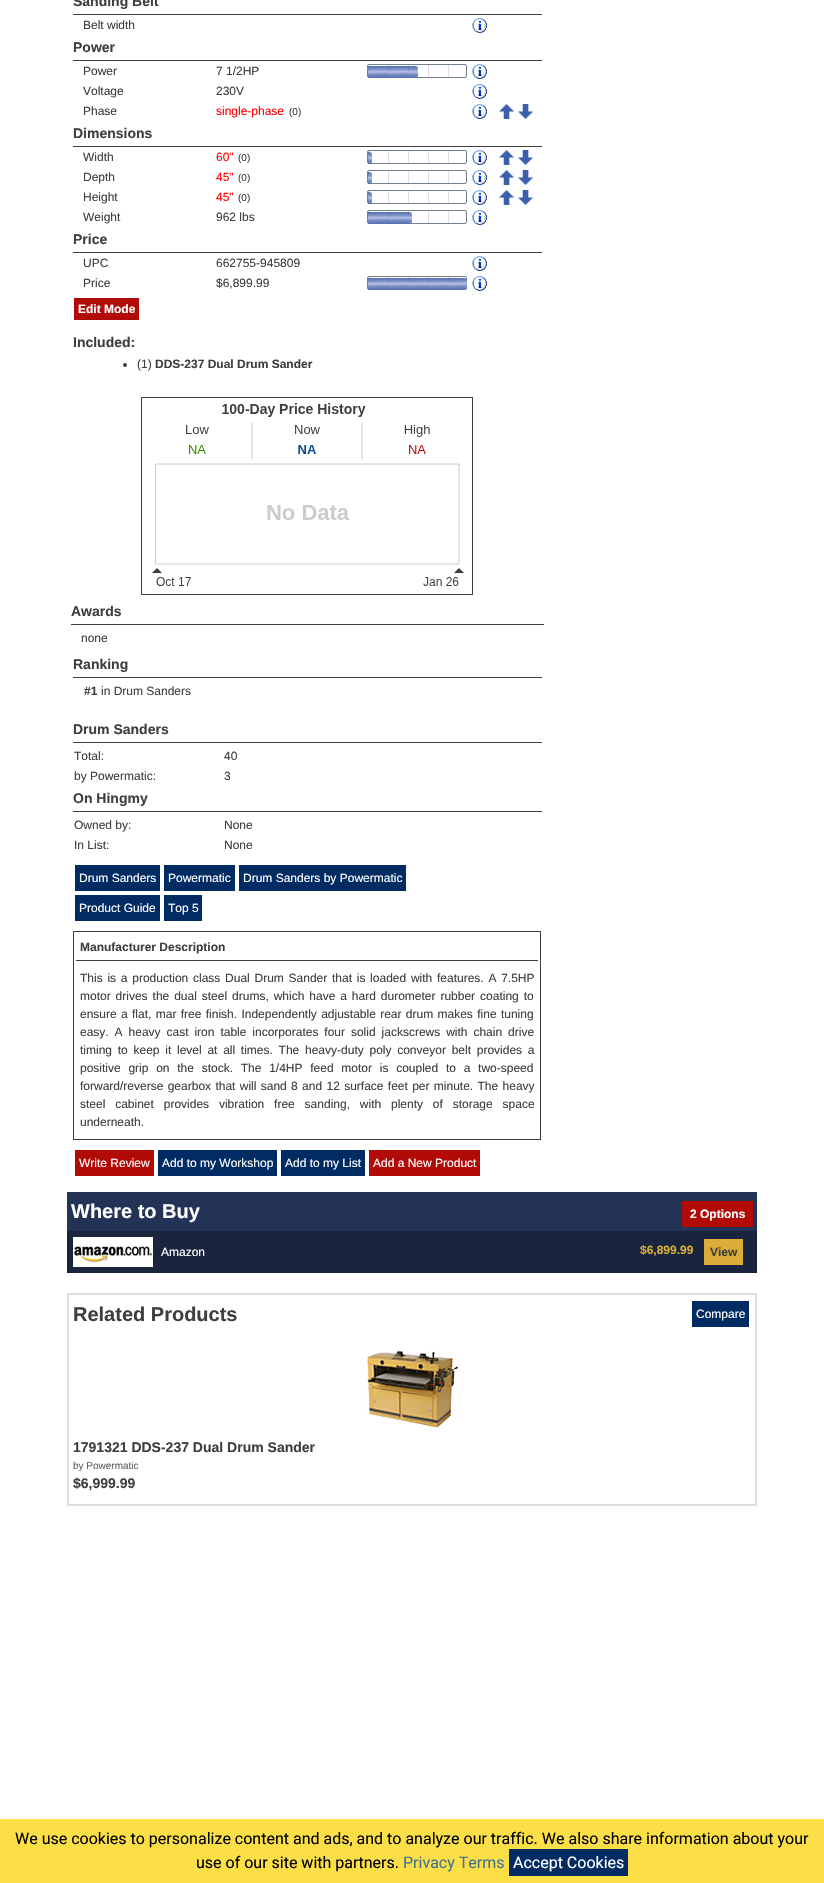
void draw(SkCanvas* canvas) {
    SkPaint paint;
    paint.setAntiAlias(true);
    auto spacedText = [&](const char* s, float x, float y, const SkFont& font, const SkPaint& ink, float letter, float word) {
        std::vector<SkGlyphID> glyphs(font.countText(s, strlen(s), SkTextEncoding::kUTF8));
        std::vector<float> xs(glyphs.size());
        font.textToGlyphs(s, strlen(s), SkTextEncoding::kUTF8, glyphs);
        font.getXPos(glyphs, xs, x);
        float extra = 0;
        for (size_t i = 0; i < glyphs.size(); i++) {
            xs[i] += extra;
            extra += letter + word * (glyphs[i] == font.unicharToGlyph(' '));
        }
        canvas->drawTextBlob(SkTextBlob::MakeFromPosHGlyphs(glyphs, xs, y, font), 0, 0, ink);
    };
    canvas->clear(0xFFFFFFFF);
    paint.setColor(0xFF3E3E3E);
    canvas->drawRect(SkRect::MakeXYWH(73, 14, 469, 1), paint);
    SkFont font1(fontMgr->matchFamilyStyle("Liberation Sans", SkFontStyle::Bold()), 14);
    font1.setSubpixel(true);
    canvas->drawString("Sanding Belt", 73, 6, font1, paint);
    SkFont font2(fontMgr->matchFamilyStyle("Liberation Sans", SkFontStyle::Normal()), 12);
    font2.setSubpixel(true);
    canvas->drawString("Belt width", 83, 29, font2, paint);
    canvas->drawImageRect(SkImages::DeferredFromEncodedData(SkData::MakeFromFileName("img1.png")), SkRect::MakeXYWH(472, 18, 15, 15), SkSamplingOptions());
    canvas->drawRect(SkRect::MakeXYWH(73, 60, 469, 1), paint);
    canvas->drawString("Power", 73, 52, font1, paint);
    canvas->drawString("Power", 83, 75, font2, paint);
    canvas->drawString("7 1/2HP", 216, 75, font2, paint);
    canvas->drawImageRect(SkImages::DeferredFromEncodedData(SkData::MakeFromFileName("img2.png")), SkRect::MakeXYWH(368, 65, 81, 12), SkSamplingOptions());
    paint.setStyle(SkPaint::kStroke_Style);
    paint.setStrokeWidth(1);
    paint.setColor(0xFF708090);
    canvas->drawRoundRect(SkRect::MakeXYWH(367.5f, 64.5f, 99, 13), 1.5f, 1.5f, paint);
    canvas->drawImageRect(SkImages::DeferredFromEncodedData(SkData::MakeFromFileName("img3.png")), SkRect::MakeXYWH(368, 66, 50, 12), SkSamplingOptions());
    canvas->drawImageRect(SkImages::DeferredFromEncodedData(SkData::MakeFromFileName("img1.png")), SkRect::MakeXYWH(472, 64, 15, 15), SkSamplingOptions());
    paint.setStyle(SkPaint::kFill_Style);
    paint.setColor(0xFF3E3E3E);
    canvas->drawString("Voltage", 83, 95, font2, paint);
    canvas->drawString("230V", 216, 95, font2, paint);
    canvas->drawImageRect(SkImages::DeferredFromEncodedData(SkData::MakeFromFileName("img1.png")), SkRect::MakeXYWH(472, 84, 15, 15), SkSamplingOptions());
    canvas->drawString("Phase", 83, 115, font2, paint);
    paint.setColor(0xFFFF0000);
    canvas->drawString("single-phase", 216, 115, font2, paint);
    SkFont font3(fontMgr->matchFamilyStyle("Liberation Sans", SkFontStyle::Normal()), 10);
    font3.setSubpixel(true);
    paint.setColor(0xFF3E3E3E);
    canvas->drawString("(0)", 289, 115, font3, paint);
    canvas->drawImageRect(SkImages::DeferredFromEncodedData(SkData::MakeFromFileName("img1.png")), SkRect::MakeXYWH(472, 104, 15, 15), SkSamplingOptions());
    canvas->drawImageRect(SkImages::DeferredFromEncodedData(SkData::MakeFromFileName("img4.png")), SkRect::MakeXYWH(499, 104, 15, 15), SkSamplingOptions());
    canvas->drawImageRect(SkImages::DeferredFromEncodedData(SkData::MakeFromFileName("img5.png")), SkRect::MakeXYWH(518, 104, 15, 15), SkSamplingOptions());
    canvas->drawRect(SkRect::MakeXYWH(73, 146, 469, 1), paint);
    canvas->drawString("Dimensions", 73, 138, font1, paint);
    canvas->drawString("Width", 83, 161, font2, paint);
    paint.setColor(0xFFFF0000);
    canvas->drawString("60\"", 216, 161, font2, paint);
    paint.setColor(0xFF3E3E3E);
    canvas->drawString("(0)", 238, 161, font3, paint);
    canvas->drawImageRect(SkImages::DeferredFromEncodedData(SkData::MakeFromFileName("img2.png")), SkRect::MakeXYWH(368, 151, 81, 12), SkSamplingOptions());
    paint.setStyle(SkPaint::kStroke_Style);
    paint.setColor(0xFF708090);
    canvas->drawRoundRect(SkRect::MakeXYWH(367.5f, 150.5f, 99, 13), 1.5f, 1.5f, paint);
    canvas->drawImageRect(SkImages::DeferredFromEncodedData(SkData::MakeFromFileName("img6.png")), SkRect::MakeXYWH(368, 152, 4, 12), SkSamplingOptions());
    canvas->drawImageRect(SkImages::DeferredFromEncodedData(SkData::MakeFromFileName("img1.png")), SkRect::MakeXYWH(472, 150, 15, 15), SkSamplingOptions());
    canvas->drawImageRect(SkImages::DeferredFromEncodedData(SkData::MakeFromFileName("img4.png")), SkRect::MakeXYWH(499, 150, 15, 15), SkSamplingOptions());
    canvas->drawImageRect(SkImages::DeferredFromEncodedData(SkData::MakeFromFileName("img5.png")), SkRect::MakeXYWH(518, 150, 15, 15), SkSamplingOptions());
    paint.setStyle(SkPaint::kFill_Style);
    paint.setColor(0xFF3E3E3E);
    canvas->drawString("Depth", 83, 181, font2, paint);
    paint.setColor(0xFFFF0000);
    canvas->drawString("45\"", 216, 181, font2, paint);
    paint.setColor(0xFF3E3E3E);
    canvas->drawString("(0)", 238, 181, font3, paint);
    canvas->drawImageRect(SkImages::DeferredFromEncodedData(SkData::MakeFromFileName("img2.png")), SkRect::MakeXYWH(368, 171, 81, 12), SkSamplingOptions());
    paint.setStyle(SkPaint::kStroke_Style);
    paint.setColor(0xFF708090);
    canvas->drawRoundRect(SkRect::MakeXYWH(367.5f, 170.5f, 99, 13), 1.5f, 1.5f, paint);
    canvas->drawImageRect(SkImages::DeferredFromEncodedData(SkData::MakeFromFileName("img6.png")), SkRect::MakeXYWH(368, 172, 4, 12), SkSamplingOptions());
    canvas->drawImageRect(SkImages::DeferredFromEncodedData(SkData::MakeFromFileName("img1.png")), SkRect::MakeXYWH(472, 170, 15, 15), SkSamplingOptions());
    canvas->drawImageRect(SkImages::DeferredFromEncodedData(SkData::MakeFromFileName("img4.png")), SkRect::MakeXYWH(499, 170, 15, 15), SkSamplingOptions());
    canvas->drawImageRect(SkImages::DeferredFromEncodedData(SkData::MakeFromFileName("img5.png")), SkRect::MakeXYWH(518, 170, 15, 15), SkSamplingOptions());
    paint.setStyle(SkPaint::kFill_Style);
    paint.setColor(0xFF3E3E3E);
    canvas->drawString("Height", 83, 201, font2, paint);
    paint.setColor(0xFFFF0000);
    canvas->drawString("45\"", 216, 201, font2, paint);
    paint.setColor(0xFF3E3E3E);
    canvas->drawString("(0)", 238, 201, font3, paint);
    canvas->drawImageRect(SkImages::DeferredFromEncodedData(SkData::MakeFromFileName("img2.png")), SkRect::MakeXYWH(368, 191, 81, 12), SkSamplingOptions());
    paint.setStyle(SkPaint::kStroke_Style);
    paint.setColor(0xFF708090);
    canvas->drawRoundRect(SkRect::MakeXYWH(367.5f, 190.5f, 99, 13), 1.5f, 1.5f, paint);
    canvas->drawImageRect(SkImages::DeferredFromEncodedData(SkData::MakeFromFileName("img6.png")), SkRect::MakeXYWH(368, 192, 4, 12), SkSamplingOptions());
    canvas->drawImageRect(SkImages::DeferredFromEncodedData(SkData::MakeFromFileName("img1.png")), SkRect::MakeXYWH(472, 190, 15, 15), SkSamplingOptions());
    canvas->drawImageRect(SkImages::DeferredFromEncodedData(SkData::MakeFromFileName("img7.png")), SkRect::MakeXYWH(499, 190, 15, 15), SkSamplingOptions());
    canvas->drawImageRect(SkImages::DeferredFromEncodedData(SkData::MakeFromFileName("img8.png")), SkRect::MakeXYWH(518, 190, 15, 15), SkSamplingOptions());
    paint.setStyle(SkPaint::kFill_Style);
    paint.setColor(0xFF3E3E3E);
    canvas->drawString("Weight", 83, 221, font2, paint);
    canvas->drawString("962 lbs", 216, 221, font2, paint);
    canvas->drawImageRect(SkImages::DeferredFromEncodedData(SkData::MakeFromFileName("img2.png")), SkRect::MakeXYWH(368, 211, 81, 12), SkSamplingOptions());
    paint.setStyle(SkPaint::kStroke_Style);
    paint.setColor(0xFF708090);
    canvas->drawRoundRect(SkRect::MakeXYWH(367.5f, 210.5f, 99, 13), 1.5f, 1.5f, paint);
    canvas->drawImageRect(SkImages::DeferredFromEncodedData(SkData::MakeFromFileName("img9.png")), SkRect::MakeXYWH(368, 212, 44, 12), SkSamplingOptions());
    canvas->drawImageRect(SkImages::DeferredFromEncodedData(SkData::MakeFromFileName("img1.png")), SkRect::MakeXYWH(472, 210, 15, 15), SkSamplingOptions());
    paint.setStyle(SkPaint::kFill_Style);
    paint.setColor(0xFF3E3E3E);
    canvas->drawRect(SkRect::MakeXYWH(73, 252, 469, 1), paint);
    canvas->drawString("Price", 73, 244, font1, paint);
    canvas->drawString("UPC", 83, 267, font2, paint);
    canvas->drawString("662755-945809", 216, 267, font2, paint);
    canvas->drawImageRect(SkImages::DeferredFromEncodedData(SkData::MakeFromFileName("img1.png")), SkRect::MakeXYWH(472, 256, 15, 15), SkSamplingOptions());
    canvas->drawString("Price", 83, 287, font2, paint);
    canvas->drawString("$6,899.99", 216, 287, font2, paint);
    canvas->drawImageRect(SkImages::DeferredFromEncodedData(SkData::MakeFromFileName("img10.png")), SkRect::MakeXYWH(368, 277, 81, 1), SkSamplingOptions());
    paint.setStyle(SkPaint::kStroke_Style);
    paint.setColor(0xFF708090);
    canvas->drawRoundRect(SkRect::MakeXYWH(367.5f, 276.5f, 99, 13), 1.5f, 1.5f, paint);
    canvas->drawImageRect(SkImages::DeferredFromEncodedData(SkData::MakeFromFileName("img11.png")), SkRect::MakeXYWH(368, 278, 99, 12), SkSamplingOptions());
    canvas->drawImageRect(SkImages::DeferredFromEncodedData(SkData::MakeFromFileName("img1.png")), SkRect::MakeXYWH(472, 276, 15, 15), SkSamplingOptions());
    paint.setStyle(SkPaint::kFill_Style);
    paint.setColor(0xFFB20A06);
    canvas->drawRect(SkRect::MakeXYWH(74, 298, 65, 22), paint);
    SkFont font4(fontMgr->matchFamilyStyle("Liberation Sans", SkFontStyle::Bold()), 12);
    font4.setSubpixel(true);
    paint.setColor(0xFFFFFFFF);
    canvas->drawString("Edit Mode", 78, 313, font4, paint);
    paint.setColor(0xFF3E3E3E);
    canvas->drawString("Included:", 73, 347, font1, paint);
    canvas->drawCircle(125, 365, 2, paint);
    canvas->drawString("(1)", 137, 368, font2, paint);
    canvas->drawString("DDS-237 Dual Drum Sander", 155, 368, font4, paint);
    paint.setStyle(SkPaint::kStroke_Style);
    canvas->drawRect(SkRect::MakeXYWH(141.5f, 397.5f, 331, 197), paint);
    canvas->drawImageRect(SkImages::DeferredFromEncodedData(SkData::MakeFromFileName("img12.png")), SkRect::MakeXYWH(152, 403, 312, 183), SkSamplingOptions());
    paint.setStyle(SkPaint::kFill_Style);
    canvas->drawRect(SkRect::MakeXYWH(71, 624, 473, 1), paint);
    canvas->drawString("Awards", 71, 616, font1, paint);
    canvas->drawString("none", 81, 642, font2, paint);
    canvas->drawRect(SkRect::MakeXYWH(73, 677, 469, 1), paint);
    canvas->drawString("Ranking", 73, 669, font1, paint);
    canvas->drawString("#1", 84, 695, font4, paint);
    canvas->drawString("in Drum Sanders", 101, 695, font2, paint);
    canvas->drawRect(SkRect::MakeXYWH(73, 742, 469, 1), paint);
    canvas->drawString("Drum Sanders", 73, 734, font1, paint);
    canvas->drawString("Total:", 74, 760, font2, paint);
    canvas->drawString("40", 224, 760, font2, paint);
    canvas->drawString("by Powermatic:", 74, 780, font2, paint);
    canvas->drawString("3", 224, 780, font2, paint);
    canvas->drawRect(SkRect::MakeXYWH(73, 811, 469, 1), paint);
    canvas->drawString("On Hingmy", 73, 803, font1, paint);
    canvas->drawString("Owned by:", 74, 829, font2, paint);
    canvas->drawString("None", 224, 829, font2, paint);
    canvas->drawString("In List:", 74, 849, font2, paint);
    canvas->drawString("None", 224, 849, font2, paint);
    paint.setColor(0xFF012B63);
    canvas->drawRect(SkRect::MakeXYWH(75, 865, 85, 26), paint);
    paint.setColor(0xFFFFFFFF);
    canvas->drawString("Drum Sanders", 79, 882, font2, paint);
    paint.setColor(0xFF012B63);
    canvas->drawRect(SkRect::MakeXYWH(164, 865, 71, 26), paint);
    paint.setColor(0xFFFFFFFF);
    canvas->drawString("Powermatic", 168, 882, font2, paint);
    paint.setColor(0xFF012B63);
    canvas->drawRect(SkRect::MakeXYWH(239, 865, 167, 26), paint);
    paint.setColor(0xFFFFFFFF);
    canvas->drawString("Drum Sanders by Powermatic", 243, 882, font2, paint);
    paint.setColor(0xFF012B63);
    canvas->drawRect(SkRect::MakeXYWH(75, 895, 85, 26), paint);
    paint.setColor(0xFFFFFFFF);
    canvas->drawString("Product Guide", 79, 912, font2, paint);
    paint.setColor(0xFF012B63);
    canvas->drawRect(SkRect::MakeXYWH(164, 895, 38, 26), paint);
    paint.setColor(0xFFFFFFFF);
    canvas->drawString("Top 5", 168, 912, font2, paint);
    paint.setStyle(SkPaint::kStroke_Style);
    paint.setColor(0xFF3E3E3E);
    canvas->drawRect(SkRect::MakeXYWH(73.5f, 931.5f, 467, 208), paint);
    paint.setStyle(SkPaint::kFill_Style);
    canvas->drawRect(SkRect::MakeXYWH(76, 960, 462, 1), paint);
    canvas->drawString("Manufacturer Description", 80, 951, font4, paint);
    spacedText("This is a production class Dual Drum Sander that is loaded with features. A 7.5HP", 80, 982, font2, paint, 0, 1.4f);
    spacedText("motor drives the dual steel drums, which have a hard durometer rubber coating to", 80, 1000, font2, paint, 0, 1.6f);
    spacedText("ensure a flat, mar free finish. Independently adjustable rear drum makes fine tuning", 80, 1018, font2, paint, 0, 1);
    spacedText("easy. A heavy cast iron table incorporates four solid jackscrews with chain drive", 80, 1036, font2, paint, 0, 2.6f);
    spacedText("timing to keep it level at all times. The heavy-duty poly conveyor belt provides a", 80, 1054, font2, paint, 0, 2.4f);
    spacedText("positive grip on the stock. The 1/4HP feed motor is coupled to a two-speed", 80, 1072, font2, paint, 0, 4.4f);
    spacedText("forward/reverse gearbox that will sand 8 and 12 surface feet per minute. The heavy", 80, 1090, font2, paint, 0, 1);
    spacedText("steel cabinet provides vibration free sanding, with plenty of storage space", 80, 1108, font2, paint, 0, 6.5f);
    canvas->drawString("underneath.", 80, 1126, font2, paint);
    paint.setColor(0xFFB20A06);
    canvas->drawRect(SkRect::MakeXYWH(75, 1150, 79, 26), paint);
    paint.setColor(0xFFFFFFFF);
    canvas->drawString("Write Review", 79, 1167, font2, paint);
    paint.setColor(0xFF012B63);
    canvas->drawRect(SkRect::MakeXYWH(158, 1150, 119, 26), paint);
    paint.setColor(0xFFFFFFFF);
    canvas->drawString("Add to my Workshop", 162, 1167, font2, paint);
    paint.setColor(0xFF012B63);
    canvas->drawRect(SkRect::MakeXYWH(281, 1150, 84, 26), paint);
    paint.setColor(0xFFFFFFFF);
    canvas->drawString("Add to my List", 285, 1167, font2, paint);
    paint.setColor(0xFFB20A06);
    canvas->drawRect(SkRect::MakeXYWH(369, 1150, 111, 26), paint);
    paint.setColor(0xFFFFFFFF);
    canvas->drawString("Add a New Product", 373, 1167, font2, paint);
    paint.setColor(0xFF223355);
    canvas->drawRect(SkRect::MakeXYWH(67, 1192, 690, 39), paint);
    SkFont font5(fontMgr->matchFamilyStyle("Liberation Sans", SkFontStyle::Bold()), 20);
    font5.setSubpixel(true);
    paint.setColor(0xFFFFFFFF);
    canvas->drawString("Where to Buy", 71, 1218, font5, paint);
    paint.setColor(0xFFB20A06);
    canvas->drawRect(SkRect::MakeXYWH(682, 1201, 71, 26), paint);
    paint.setColor(0xFFFFFFFF);
    canvas->drawString("2 Options", 690, 1218, font4, paint);
    paint.setColor(0xFF18253D);
    canvas->drawRect(SkRect::MakeXYWH(67, 1231, 690, 3), paint);
    canvas->drawRect(SkRect::MakeXYWH(67, 1234, 690, 39), paint);
    canvas->drawImageRect(SkImages::DeferredFromEncodedData(SkData::MakeFromFileName("img13.png")), SkRect::MakeXYWH(73, 1237, 80, 30), SkSamplingOptions());
    paint.setColor(0xFFFFFFFF);
    canvas->drawString("Amazon", 161, 1256, font2, paint);
    paint.setColor(0xFFDAAD3B);
    canvas->drawString("$6,899.99", 640, 1254, font4, paint);
    canvas->drawRect(SkRect::MakeXYWH(704, 1239, 39, 26), paint);
    paint.setColor(0xFF3E3E3E);
    canvas->drawString("View", 710, 1256, font4, paint);
    paint.setStyle(SkPaint::kStroke_Style);
    paint.setColor(0xFFDEE2E6);
    canvas->drawRect(SkRect::MakeXYWH(67.5f, 1293.5f, 689, 212), paint);
    paint.setStyle(SkPaint::kFill_Style);
    paint.setColor(0xFFDDDDDD);
    canvas->drawRect(SkRect::MakeXYWH(68, 1294, 688, 1), paint);
    canvas->drawRect(SkRect::MakeXYWH(755, 1294, 1, 211), paint);
    canvas->drawRect(SkRect::MakeXYWH(68, 1504, 688, 1), paint);
    canvas->drawRect(SkRect::MakeXYWH(68, 1294, 1, 211), paint);
    paint.setColor(0xFF3E3E3E);
    canvas->drawString("Related Products", 73, 1321, font5, paint);
    paint.setColor(0xFF012B63);
    canvas->drawRect(SkRect::MakeXYWH(692, 1301, 57, 26), paint);
    paint.setColor(0xFFFFFFFF);
    canvas->drawString("Compare", 696, 1318, font2, paint);
    canvas->drawImageRect(SkImages::DeferredFromEncodedData(SkData::MakeFromFileName("img14.png")), SkRect::MakeXYWH(362, 1347, 96, 86), SkSamplingOptions());
    paint.setColor(0xFF3E3E3E);
    canvas->drawString("1791321 DDS-237 Dual Drum Sander", 73, 1452, font1, paint);
    paint.setColor(0xFF606060);
    canvas->drawString("by Powermatic", 73, 1469, font3, paint);
    paint.setColor(0xFF3E3E3E);
    canvas->drawString("$6,999.99", 73, 1488, font1, paint);
    paint.setColor(0xFFFCDE47);
    canvas->drawRect(SkRect::MakeXYWH(0, 1819, 824, 64), paint);
    SkFont font6(fontMgr->matchFamilyStyle("Roboto", SkFontStyle::Normal()), 16);
    font6.setSubpixel(true);
    paint.setColor(0xFF000000);
    canvas->drawString("We use cookies to personalize content and ads, and to analyze our traffic. We also share information about your", 15, 1844, font6, paint);
    canvas->drawString("use of our site with partners.", 196, 1868, font6, paint);
    paint.setColor(0xFF417394);
    canvas->drawString("Privacy Terms", 403, 1868, font6, paint);
    paint.setColor(0xFF012B63);
    canvas->drawRect(SkRect::MakeXYWH(509, 1849, 119, 27), paint);
    paint.setColor(0xFFFFFFFF);
    canvas->drawString("Accept Cookies", 513, 1868, font6, paint);
}
